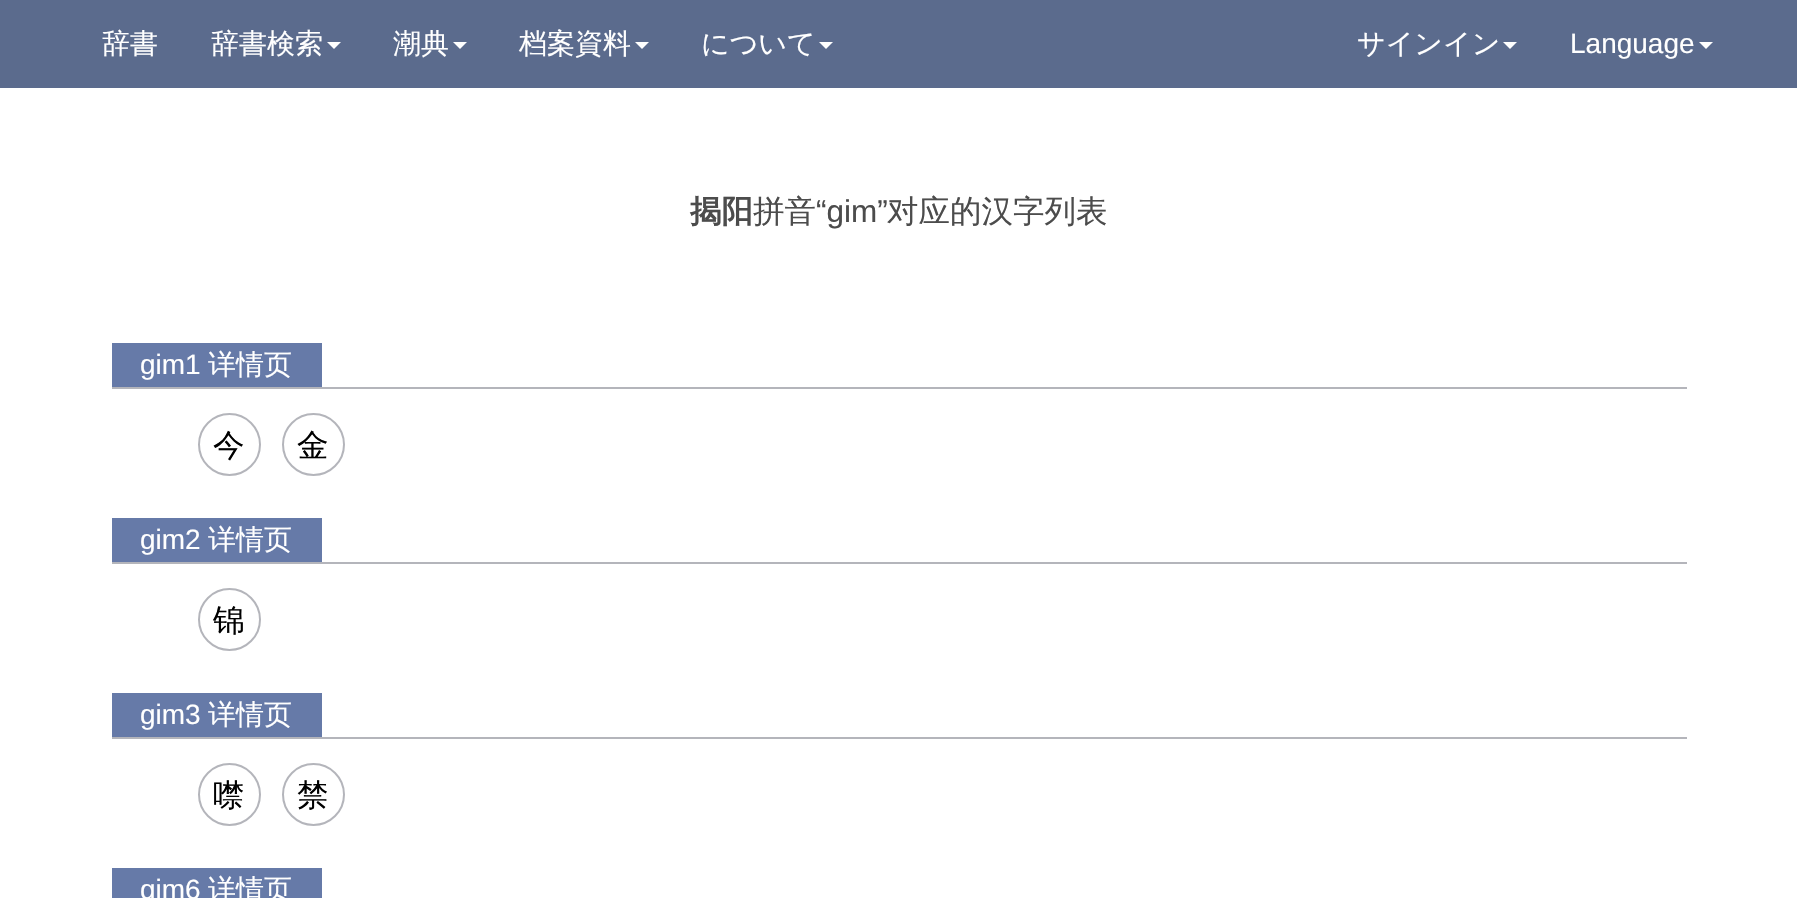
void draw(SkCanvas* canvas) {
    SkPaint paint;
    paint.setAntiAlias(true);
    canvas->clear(0xFFFFFFFF);
    paint.setColor(0xFF5B6B8D);
    canvas->drawRect(SkRect::MakeXYWH(0, 0, 1797, 88), paint);
    SkFont font1(fontMgr->matchFamilyStyle("WenQuanYi Zen Hei", SkFontStyle(500, SkFontStyle::kNormal_Width, SkFontStyle::kUpright_Slant)), 28);
    font1.setSubpixel(true);
    paint.setColor(0xFFFFFFFF);
    canvas->drawString("辞書", 102, 53, font1, paint);
    canvas->drawString("辞書検索", 211, 53, font1, paint);
    canvas->drawPath(SkPathBuilder().moveTo(327, 42).lineTo(341, 42).lineTo(334, 49).close().detach(), paint);
    canvas->drawString("潮典", 393, 53, font1, paint);
    canvas->drawPath(SkPathBuilder().moveTo(453, 42).lineTo(467, 42).lineTo(460, 49).close().detach(), paint);
    canvas->drawString("档案資料", 519, 53, font1, paint);
    canvas->drawPath(SkPathBuilder().moveTo(635, 42).lineTo(649, 42).lineTo(642, 49).close().detach(), paint);
    canvas->drawString("について", 701, 53, font1, paint);
    canvas->drawPath(SkPathBuilder().moveTo(819, 42).lineTo(833, 42).lineTo(826, 49).close().detach(), paint);
    canvas->drawString("サインイン", 1357, 53, font1, paint);
    canvas->drawPath(SkPathBuilder().moveTo(1503, 42).lineTo(1517, 42).lineTo(1510, 49).close().detach(), paint);
    SkFont font2(fontMgr->matchFamilyStyle("Liberation Sans", SkFontStyle::Normal()), 28);
    font2.setSubpixel(true);
    canvas->drawString("Language", 1570, 53, font2, paint);
    canvas->drawPath(SkPathBuilder().moveTo(1699, 42).lineTo(1713, 42).lineTo(1706, 49).close().detach(), paint);
    SkFont font3(fontMgr->matchFamilyStyle("WenQuanYi Zen Hei", SkFontStyle::Bold()), 31.5f);
    font3.setSubpixel(true);
    paint.setColor(0xFF4C4C4C);
    canvas->drawString("揭阳", 690, 222, font3, paint);
    SkFont font4(fontMgr->matchFamilyStyle("WenQuanYi Zen Hei", SkFontStyle(500, SkFontStyle::kNormal_Width, SkFontStyle::kUpright_Slant)), 31.5f);
    font4.setSubpixel(true);
    canvas->drawString("拼音", 753, 222, font4, paint);
    SkFont font5(fontMgr->matchFamilyStyle("Liberation Sans", SkFontStyle::Normal()), 31.5f);
    font5.setSubpixel(true);
    canvas->drawString("“gim”", 816, 222, font5, paint);
    canvas->drawString("对应的汉字列表", 887, 222, font4, paint);
    paint.setColor(0xFFB4B5BB);
    canvas->drawRect(SkRect::MakeXYWH(112, 387, 1575, 2), paint);
    paint.setColor(0xFF667AA8);
    canvas->drawRect(SkRect::MakeXYWH(112, 343, 210, 44), paint);
    paint.setColor(0xFFFFFFFF);
    canvas->drawString("gim1", 140, 374, font2, paint);
    canvas->drawString("详情页", 208, 374, font1, paint);
    paint.setStyle(SkPaint::kStroke_Style);
    paint.setStrokeWidth(2);
    paint.setColor(0xFFB4B5BB);
    canvas->drawCircle(229.5f, 444.5f, 30.5f, paint);
    paint.setStyle(SkPaint::kFill_Style);
    paint.setColor(0xFF000000);
    canvas->drawString("今", 213, 456, font4, paint);
    paint.setStyle(SkPaint::kStroke_Style);
    paint.setColor(0xFFB4B5BB);
    canvas->drawCircle(313.5f, 444.5f, 30.5f, paint);
    paint.setStyle(SkPaint::kFill_Style);
    paint.setColor(0xFF000000);
    canvas->drawString("金", 297, 456, font4, paint);
    paint.setColor(0xFFB4B5BB);
    canvas->drawRect(SkRect::MakeXYWH(112, 562, 1575, 2), paint);
    paint.setColor(0xFF667AA8);
    canvas->drawRect(SkRect::MakeXYWH(112, 518, 210, 44), paint);
    paint.setColor(0xFFFFFFFF);
    canvas->drawString("gim2", 140, 549, font2, paint);
    canvas->drawString("详情页", 208, 549, font1, paint);
    paint.setStyle(SkPaint::kStroke_Style);
    paint.setColor(0xFFB4B5BB);
    canvas->drawCircle(229.5f, 619.5f, 30.5f, paint);
    paint.setStyle(SkPaint::kFill_Style);
    paint.setColor(0xFF000000);
    canvas->drawString("锦", 213, 631, font4, paint);
    paint.setColor(0xFFB4B5BB);
    canvas->drawRect(SkRect::MakeXYWH(112, 737, 1575, 2), paint);
    paint.setColor(0xFF667AA8);
    canvas->drawRect(SkRect::MakeXYWH(112, 693, 210, 44), paint);
    paint.setColor(0xFFFFFFFF);
    canvas->drawString("gim3", 140, 724, font2, paint);
    canvas->drawString("详情页", 208, 724, font1, paint);
    paint.setStyle(SkPaint::kStroke_Style);
    paint.setColor(0xFFB4B5BB);
    canvas->drawCircle(229.5f, 794.5f, 30.5f, paint);
    paint.setStyle(SkPaint::kFill_Style);
    paint.setColor(0xFF000000);
    canvas->drawString("噤", 213, 806, font4, paint);
    paint.setStyle(SkPaint::kStroke_Style);
    paint.setColor(0xFFB4B5BB);
    canvas->drawCircle(313.5f, 794.5f, 30.5f, paint);
    paint.setStyle(SkPaint::kFill_Style);
    paint.setColor(0xFF000000);
    canvas->drawString("禁", 297, 806, font4, paint);
    paint.setColor(0xFF667AA8);
    canvas->drawRect(SkRect::MakeXYWH(112, 868, 210, 30), paint);
    paint.setColor(0xFFFFFFFF);
    canvas->drawString("gim6", 140, 899, font2, paint);
    canvas->drawString("详情页", 208, 899, font1, paint);
}
